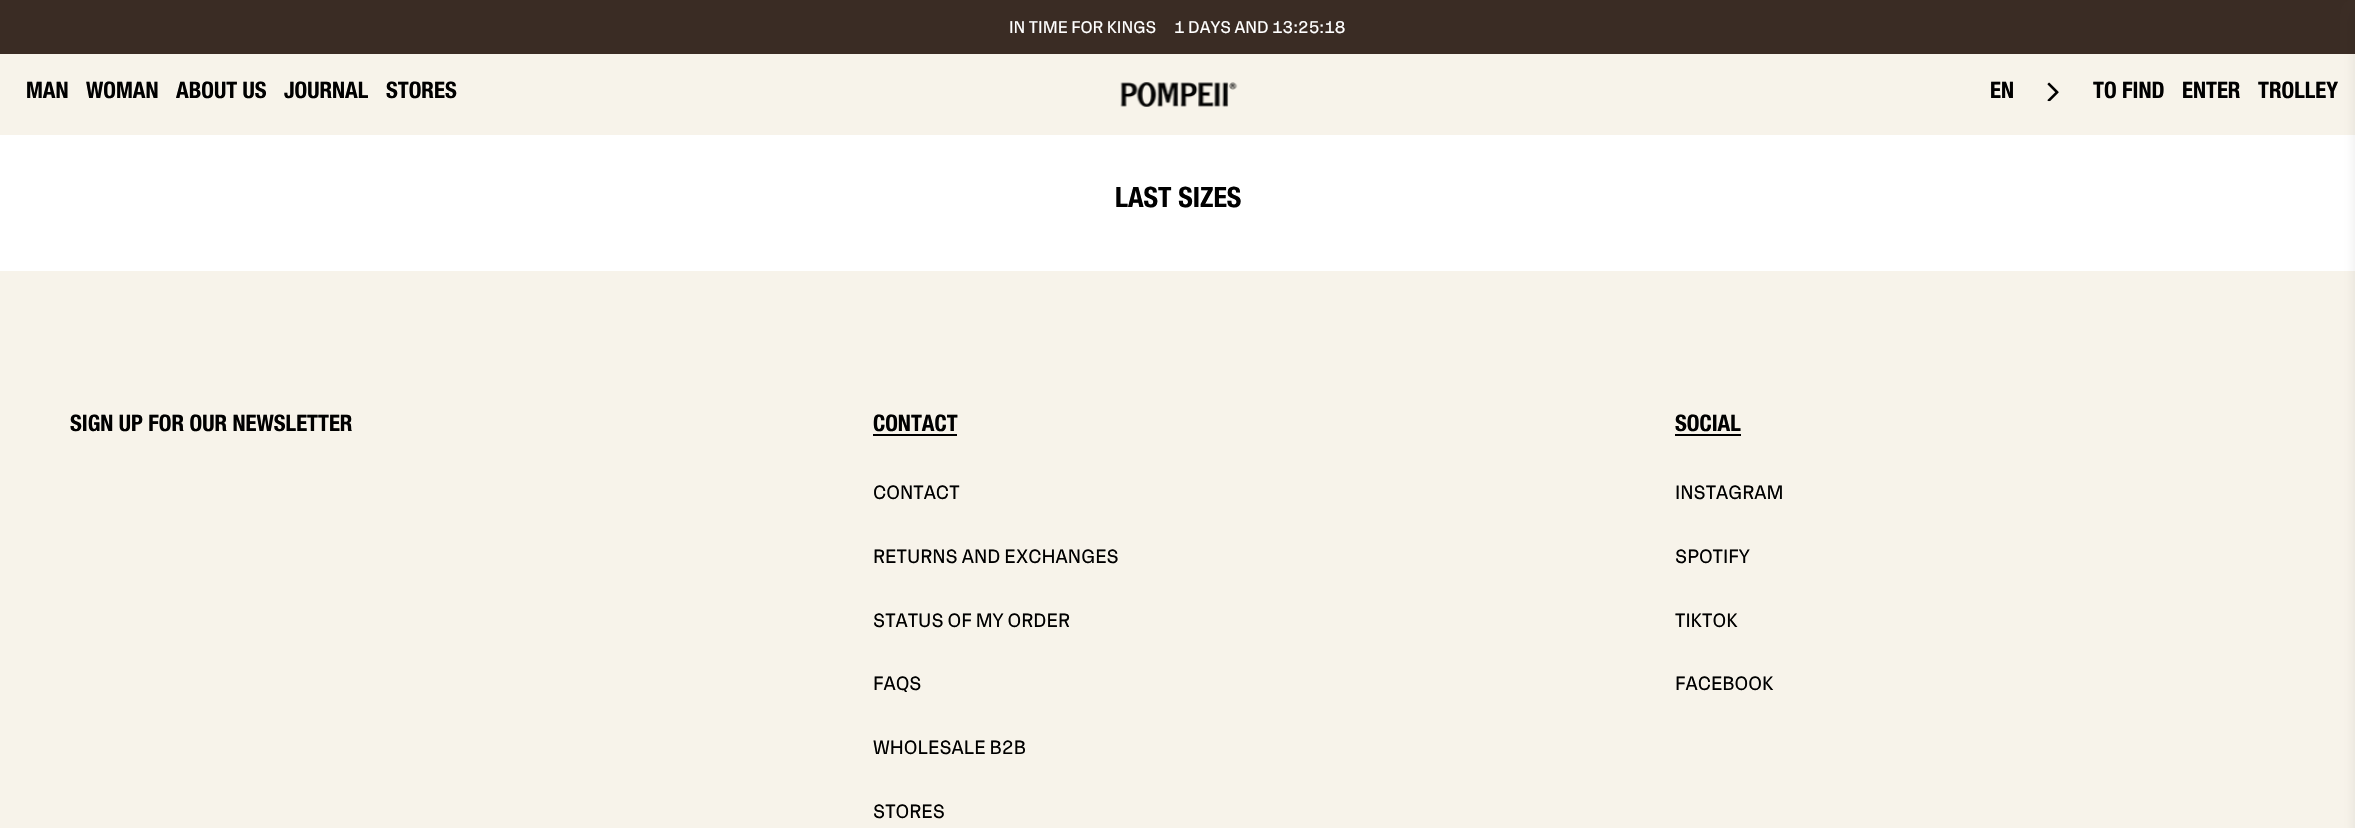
void draw(SkCanvas* canvas) {
    SkPaint paint;
    paint.setAntiAlias(true);
    canvas->clear(0xFFFFFFFF);
    paint.setColor(0xFF3A2C24);
    canvas->drawRect(SkRect::MakeXYWH(0, 0, 2355, 54), paint);
    SkFont font1(fontMgr->matchFamilyStyle("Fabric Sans", SkFontStyle::Normal()), 17);
    font1.setSubpixel(true);
    paint.setColor(0xFFFFFFFF);
    canvas->drawString("IN TIME FOR KINGS", 1009, 33, font1, paint);
    canvas->drawString("1 DAYS AND 13:25:18", 1174, 33, font1, paint);
    paint.setColor(0xFFF7F3EA);
    canvas->drawRect(SkRect::MakeXYWH(0, 54, 2355, 81), paint);
    canvas->drawRect(SkRect::MakeXYWH(0, 271, 2355, 557), paint);
    paint.setColor(0x1A0A0A0A);
    paint.setMaskFilter(SkMaskFilter::MakeBlur(kNormal_SkBlurStyle, 7));
    canvas->drawRect(SkRect::MakeXYWH(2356, 14, 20, 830), paint);
    paint.setMaskFilter(nullptr);
    SkFont font2(fontMgr->matchFamilyStyle("Helvetica Neue", SkFontStyle::Bold()), 22.75f);
    font2.setSubpixel(true);
    paint.setColor(0xFF000000);
    canvas->drawString("MAN", 26, 98, font2, paint);
    canvas->drawString("WOMAN", 86, 98, font2, paint);
    canvas->drawString("ABOUT US", 176, 98, font2, paint);
    canvas->drawString("JOURNAL", 284, 98, font2, paint);
    canvas->drawString("STORES", 386, 98, font2, paint);
    canvas->drawImageRect(SkImages::DeferredFromEncodedData(SkData::MakeFromFileName("img1.png")), SkRect::MakeXYWH(1120, 82, 118, 25), SkSamplingOptions());
    canvas->drawString("EN", 1990, 98, font2, paint);
    canvas->drawImageRect(SkImages::DeferredFromEncodedData(SkData::MakeFromFileName("img2.png")), SkRect::MakeXYWH(2047, 82, 12, 20), SkSamplingOptions());
    canvas->drawString("TO FIND", 2093, 98, font2, paint);
    canvas->drawString("ENTER", 2182, 98, font2, paint);
    canvas->drawString("TROLLEY", 2258, 98, font2, paint);
    SkFont font3(fontMgr->matchFamilyStyle("Helvetica Neue", SkFontStyle::Bold()), 28);
    font3.setSubpixel(true);
    canvas->drawString("LAST SIZES", 1115, 207, font3, paint);
    canvas->drawString("SIGN UP FOR OUR NEWSLETTER", 70, 431, font2, paint);
    canvas->drawString("CONTACT", 873, 431, font2, paint);
    canvas->drawRect(SkRect::MakeXYWH(873, 434, 84, 2), paint);
    SkFont font4(fontMgr->matchFamilyStyle("Fabric Sans", SkFontStyle::Normal()), 19.25f);
    font4.setSubpixel(true);
    canvas->drawString("CONTACT", 873, 499, font4, paint);
    canvas->drawString("RETURNS AND EXCHANGES", 873, 563, font4, paint);
    canvas->drawString("STATUS OF MY ORDER", 873, 627, font4, paint);
    canvas->drawString("FAQS", 873, 690, font4, paint);
    canvas->drawString("WHOLESALE B2B", 873, 754, font4, paint);
    canvas->drawString("STORES", 873, 818, font4, paint);
    canvas->drawString("SOCIAL", 1675, 431, font2, paint);
    canvas->drawRect(SkRect::MakeXYWH(1675, 434, 66, 2), paint);
    canvas->drawString("INSTAGRAM", 1675, 499, font4, paint);
    canvas->drawString("SPOTIFY", 1675, 563, font4, paint);
    canvas->drawString("TIKTOK", 1675, 627, font4, paint);
    canvas->drawString("FACEBOOK", 1675, 690, font4, paint);
}
